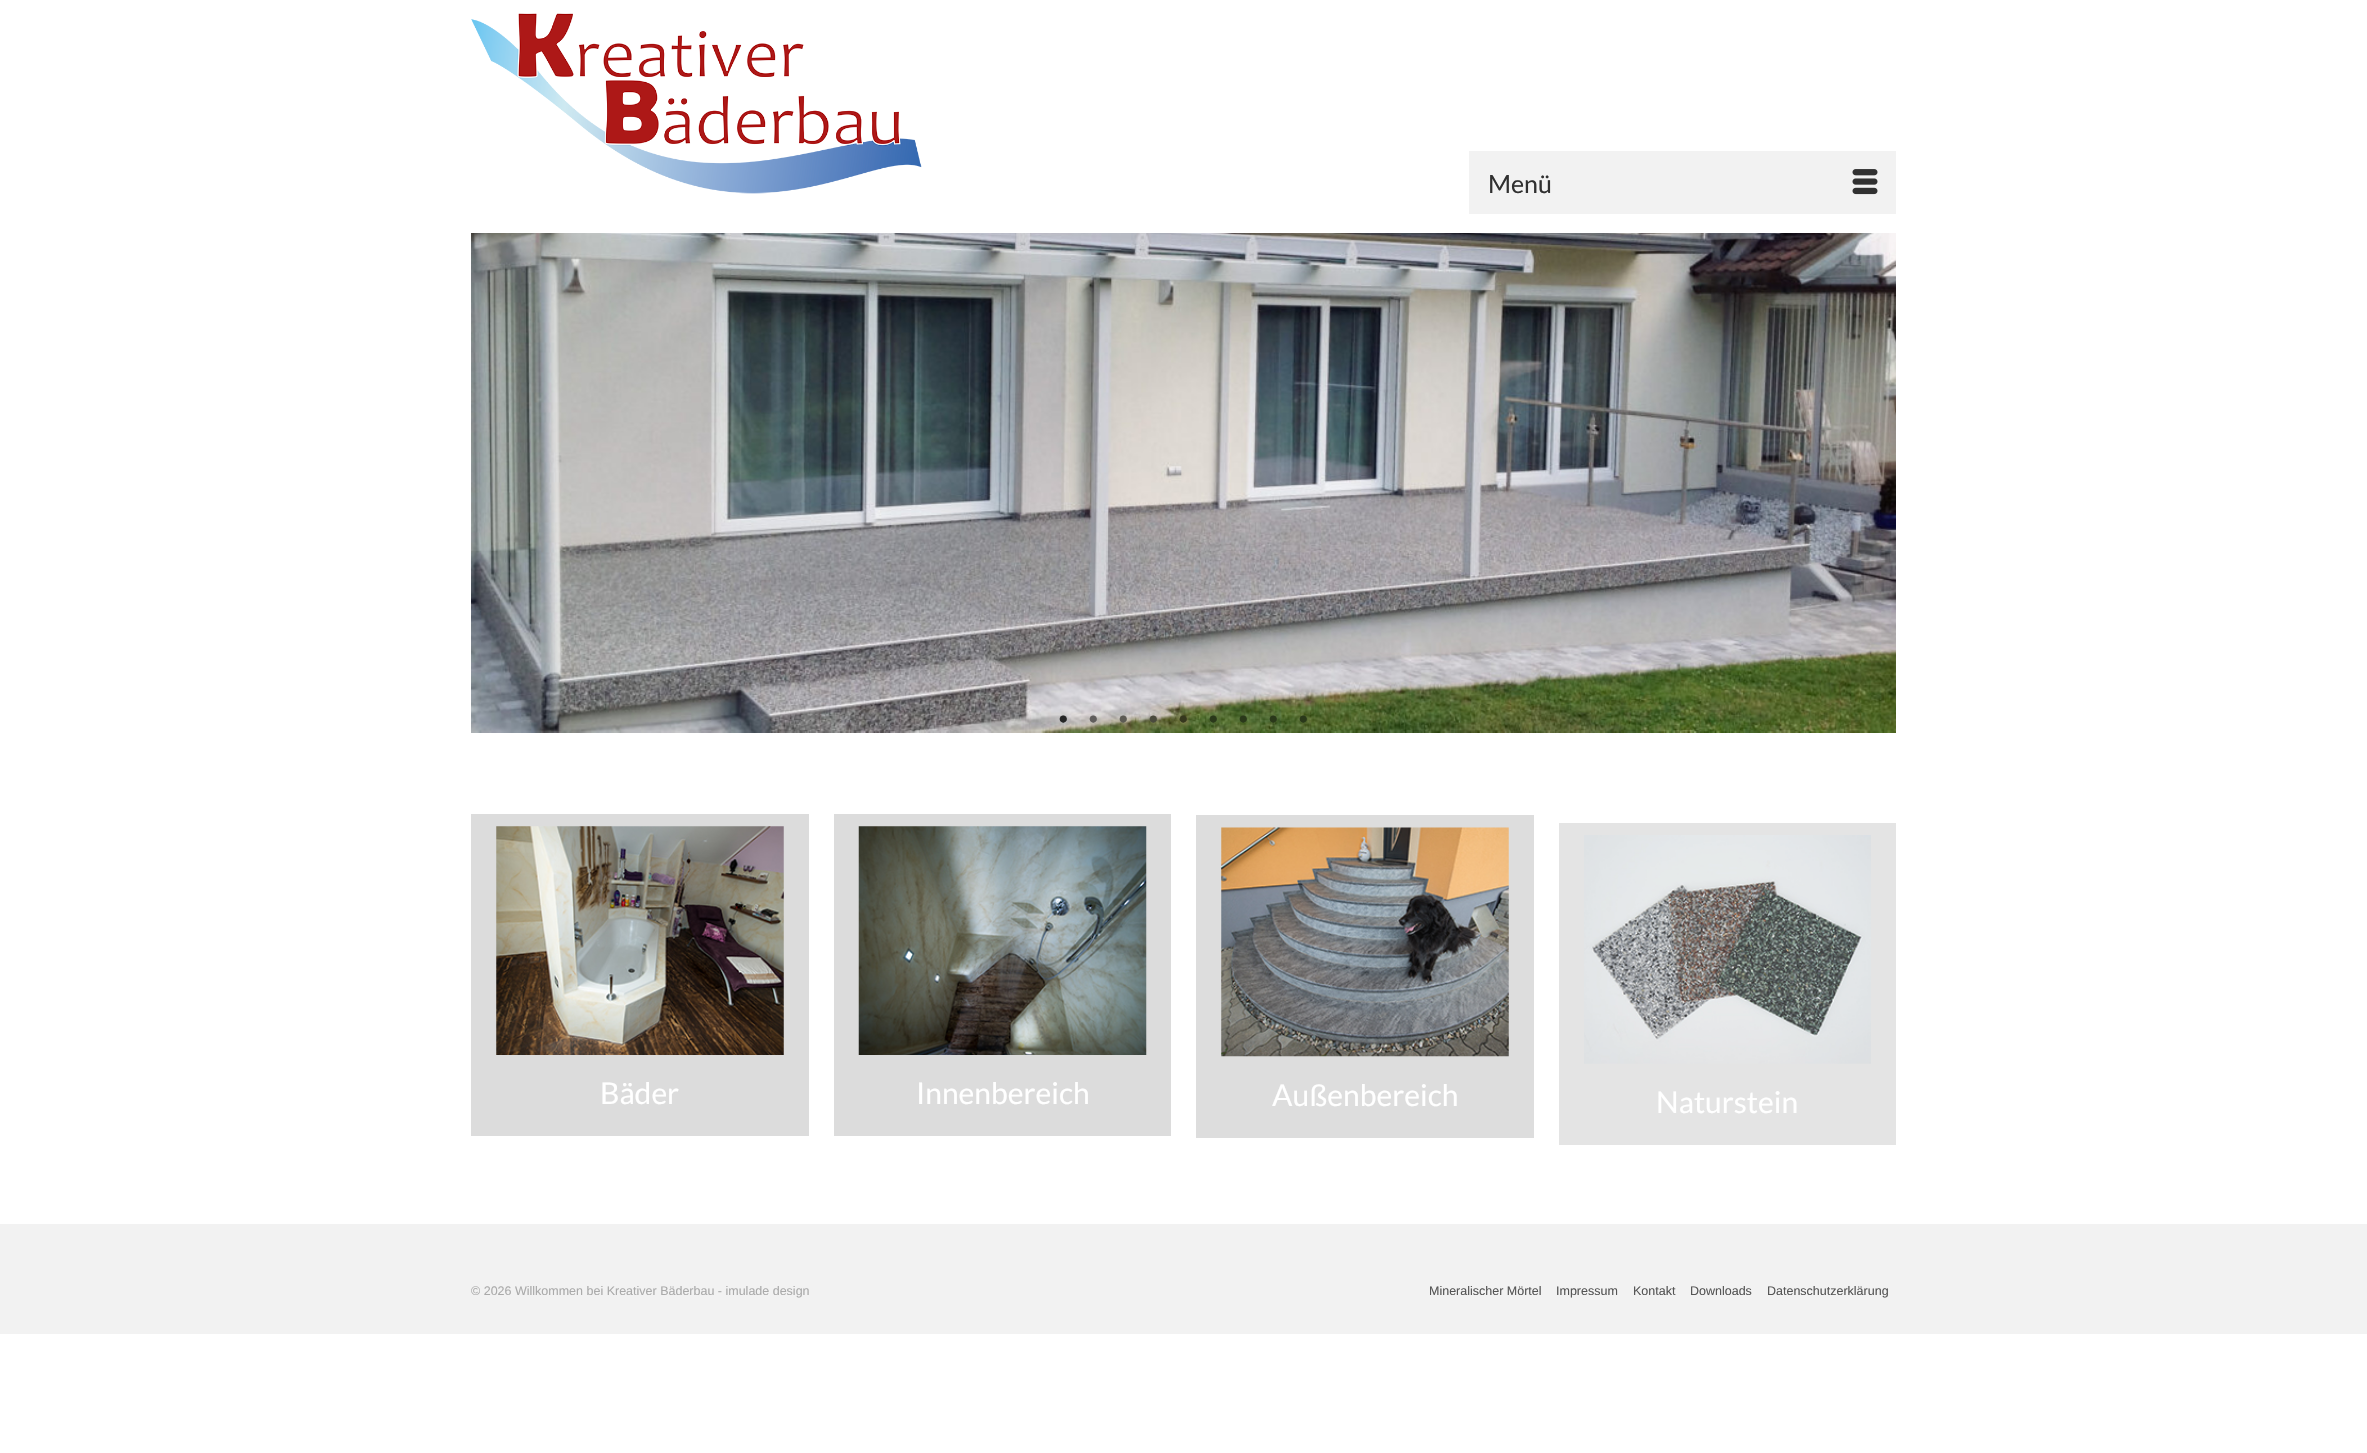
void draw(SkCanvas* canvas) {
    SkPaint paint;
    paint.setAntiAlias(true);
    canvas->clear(0xFFFFFFFF);
    canvas->drawImageRect(SkImages::DeferredFromEncodedData(SkData::MakeFromFileName("img1.png")), SkRect::MakeXYWH(471, 13, 451, 181), SkSamplingOptions());
    paint.setColor(0xFFF2F2F2);
    canvas->drawRect(SkRect::MakeXYWH(1469, 151, 427, 63), paint);
    SkFont font1(fontMgr->matchFamilyStyle("Lato", SkFontStyle::Normal()), 25);
    font1.setSubpixel(true);
    paint.setColor(0xFF303030);
    canvas->drawString("Menü", 1488, 193, font1, paint);
    canvas->drawImageRect(SkImages::DeferredFromEncodedData(SkData::MakeFromFileName("img2.png")), SkRect::MakeXYWH(1852, 169, 26, 26), SkSamplingOptions());
    canvas->drawImageRect(SkImages::DeferredFromEncodedData(SkData::MakeFromFileName("img3.png")), SkRect::MakeXYWH(471, 233, 1425, 500), SkSamplingOptions());
    SkFont font2(fontMgr->matchFamilyStyle("Liberation Serif", SkFontStyle::Normal()), 30);
    font2.setSubpixel(true);
    paint.setColor(0xFF252525);
    canvas->drawString("•", 1058, 729, font2, paint);
    paint.setColor(0xFF605D5C);
    canvas->drawString("•", 1088, 729, font2, paint);
    paint.setColor(0xFF5D5B54);
    canvas->drawString("•", 1118, 729, font2, paint);
    paint.setColor(0xFF4A4A3D);
    canvas->drawString("•", 1148, 729, font2, paint);
    paint.setColor(0xFF36371E);
    canvas->drawString("•", 1178, 729, font2, paint);
    paint.setColor(0xFF2A381A);
    canvas->drawString("•", 1208, 729, font2, paint);
    canvas->drawString("•", 1238, 729, font2, paint);
    canvas->drawString("•", 1268, 729, font2, paint);
    canvas->drawString("•", 1298, 729, font2, paint);
    paint.setColor(0xFFDCDCDC);
    canvas->drawRect(SkRect::MakeXYWH(471, 814, 338, 322), paint);
    canvas->drawImageRect(SkImages::DeferredFromEncodedData(SkData::MakeFromFileName("img4.png")), SkRect::MakeXYWH(496, 826, 288, 229), SkSamplingOptions());
    SkFont font3(fontMgr->matchFamilyStyle("Lato", SkFontStyle::Normal()), 30);
    font3.setSubpixel(true);
    paint.setColor(0xFFFFFFFF);
    canvas->drawString("Bäder", 600, 1104, font3, paint);
    paint.setColor(0xFFDCDCDC);
    canvas->drawRect(SkRect::MakeXYWH(834, 814, 337, 322), paint);
    canvas->drawImageRect(SkImages::DeferredFromEncodedData(SkData::MakeFromFileName("img5.png")), SkRect::MakeXYWH(858, 826, 289, 229), SkSamplingOptions());
    paint.setColor(0xFFFFFFFF);
    canvas->drawString("Innenbereich", 916, 1104, font3, paint);
    paint.setColor(0xFFDDDDDD);
    canvas->drawRect(SkRect::MakeXYWH(1196, 815, 338, 323), paint);
    canvas->drawImageRect(SkImages::DeferredFromEncodedData(SkData::MakeFromFileName("img6.png")), SkRect::MakeXYWH(1221, 827, 288, 230), SkSamplingOptions());
    paint.setColor(0xFFFFFFFF);
    canvas->drawString("Außenbereich", 1272, 1106, font3, paint);
    paint.setColor(0xFFE4E4E4);
    canvas->drawRect(SkRect::MakeXYWH(1559, 823, 337, 322), paint);
    canvas->drawImageRect(SkImages::DeferredFromEncodedData(SkData::MakeFromFileName("img7.png")), SkRect::MakeXYWH(1584, 835, 287, 229), SkSamplingOptions());
    paint.setColor(0xFFFFFFFF);
    canvas->drawString("Naturstein", 1656, 1113, font3, paint);
    paint.setColor(0xFFF2F2F2);
    canvas->drawRect(SkRect::MakeXYWH(0, 1224, 2367, 110), paint);
    SkFont font4(fontMgr->matchFamilyStyle("Liberation Sans", SkFontStyle::Normal()), 12.5f);
    font4.setSubpixel(true);
    paint.setColor(0xFFAAAAAA);
    canvas->drawString("© 2026 Willkommen bei Kreativer Bäderbau - imulade design", 471, 1295, font4, paint);
    paint.setColor(0xFF555555);
    canvas->drawString("Mineralischer Mörtel", 1429, 1295, font4, paint);
    canvas->drawString("Impressum", 1556, 1295, font4, paint);
    canvas->drawString("Kontakt", 1633, 1295, font4, paint);
    canvas->drawString("Downloads", 1690, 1295, font4, paint);
    canvas->drawString("Datenschutzerklärung", 1767, 1295, font4, paint);
}
